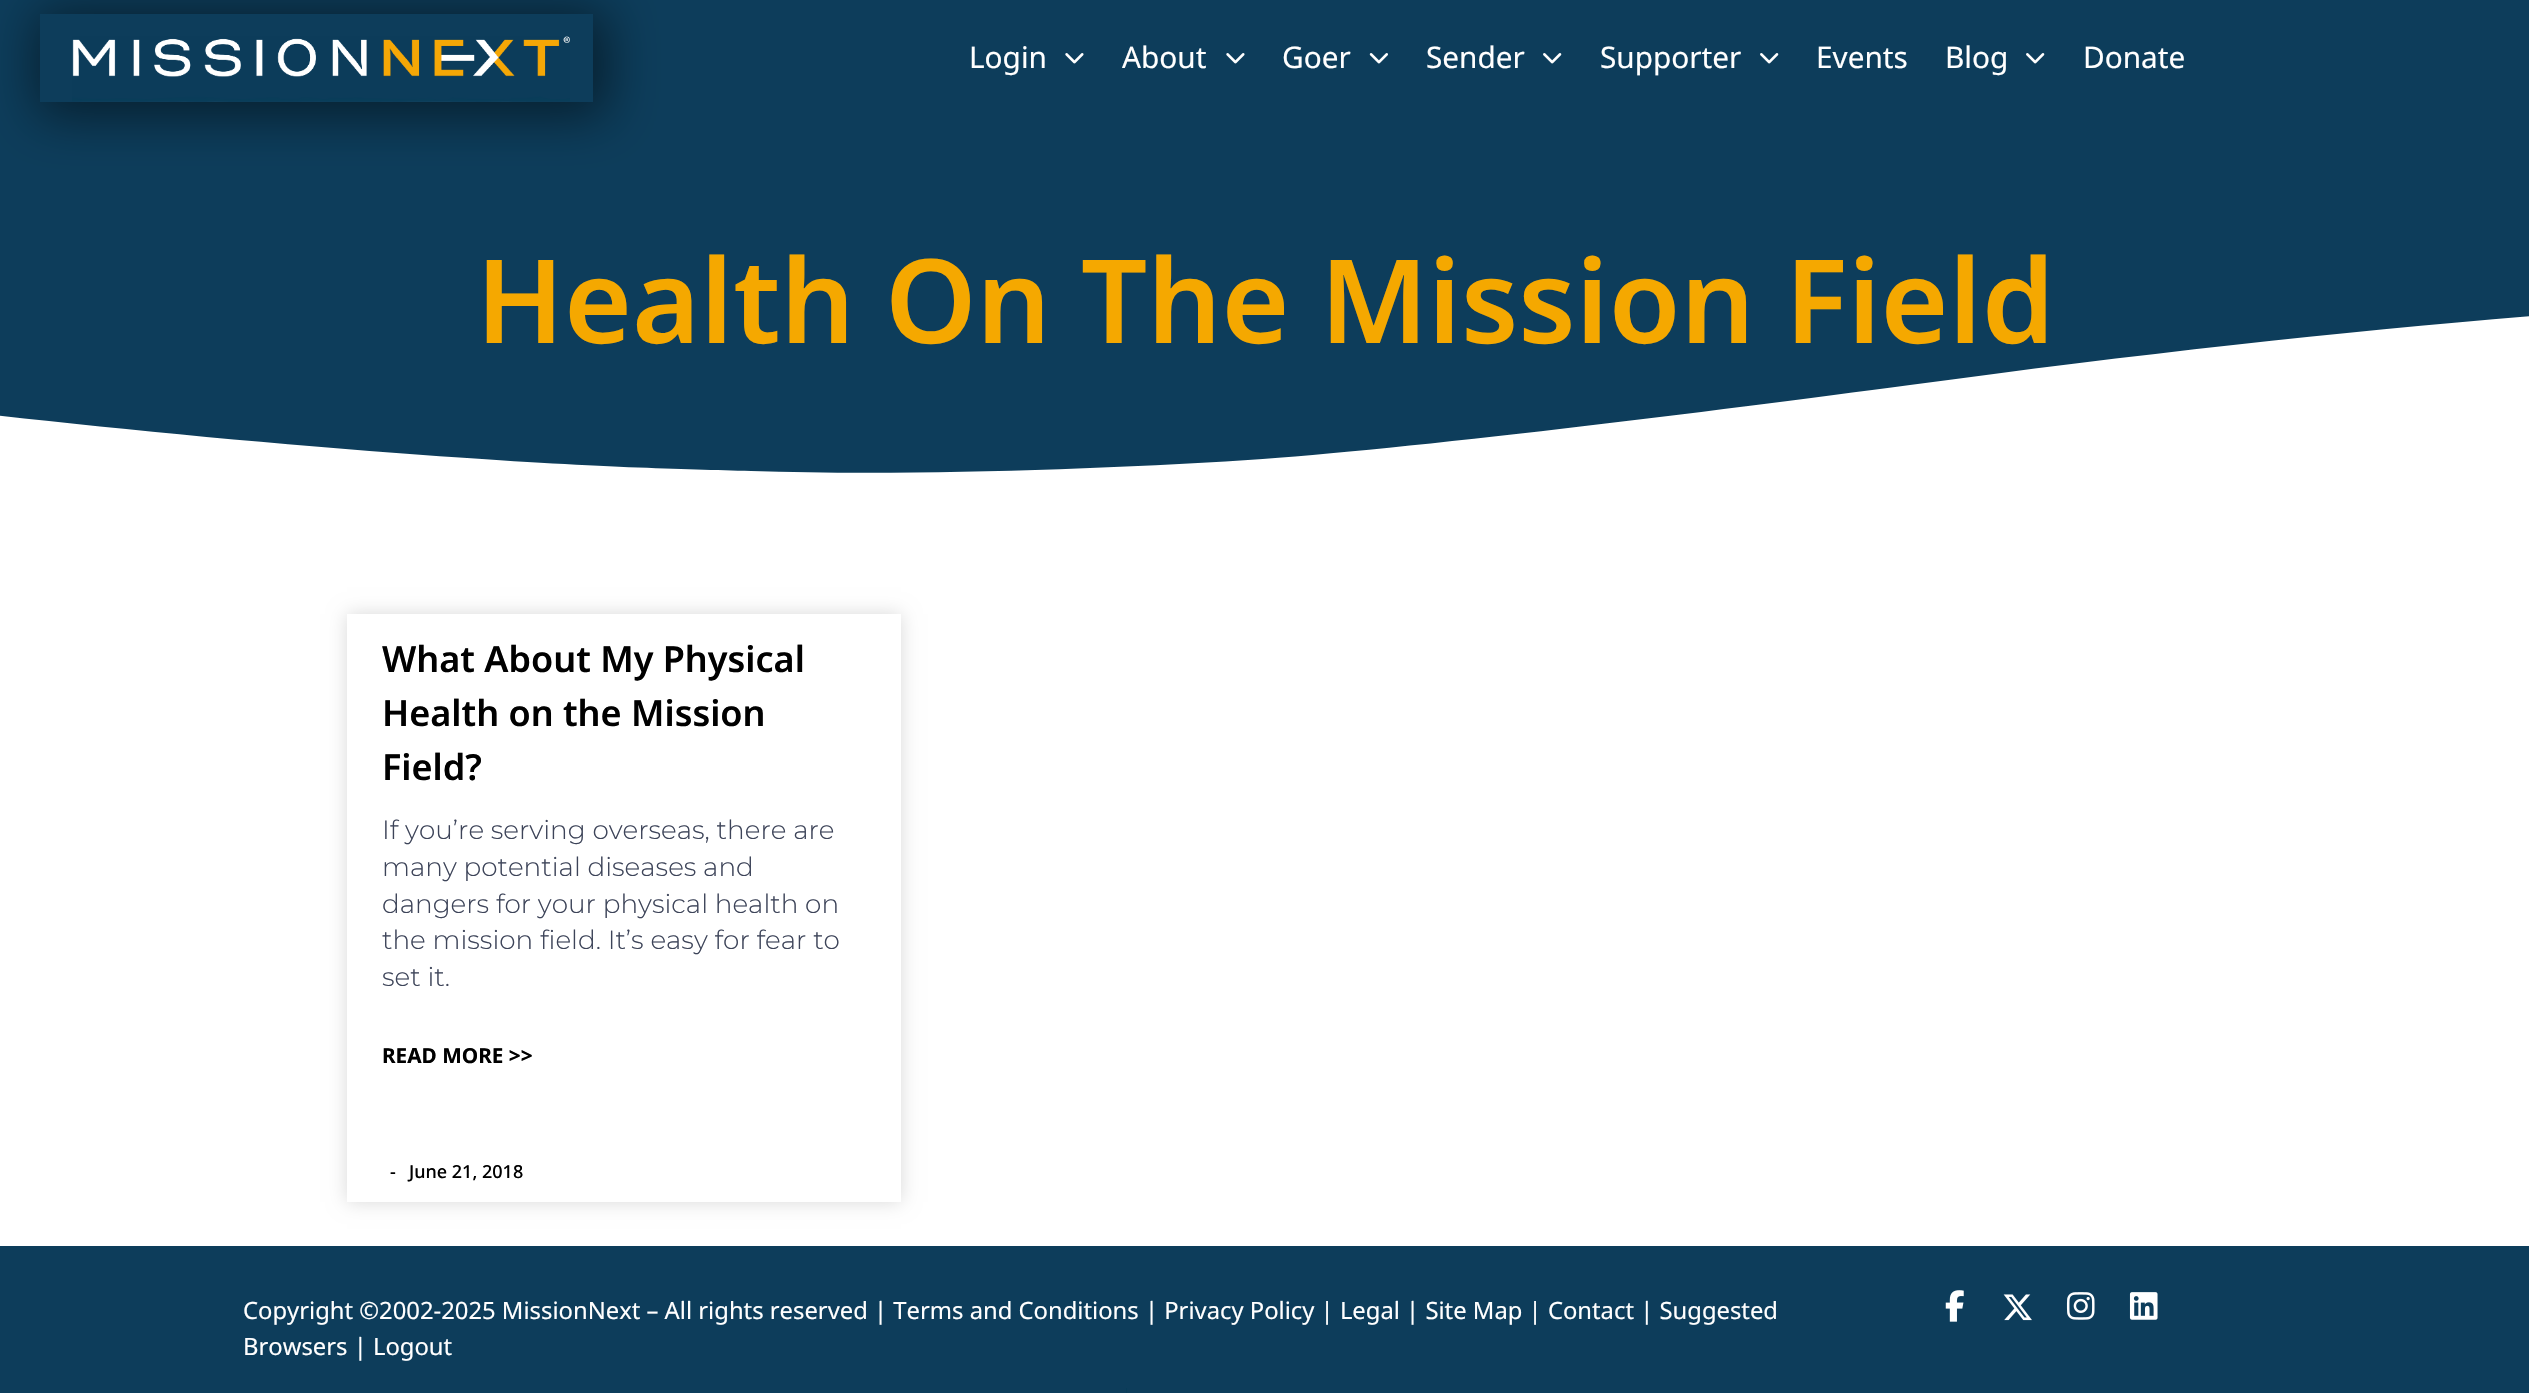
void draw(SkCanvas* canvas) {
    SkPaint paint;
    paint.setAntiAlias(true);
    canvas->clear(0xFF0D3D5B);
    canvas->save();
    canvas->clipPath(SkPathBuilder(SkPathFillType::kEvenOdd).moveTo(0, 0).lineTo(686, 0).lineTo(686, 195).lineTo(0, 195).close().moveTo(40, 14).lineTo(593, 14).lineTo(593, 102).lineTo(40, 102).close().detach(), true);
    paint.setColor(0x80000000);
    paint.setMaskFilter(SkMaskFilter::MakeBlur(kNormal_SkBlurStyle, 26));
    canvas->drawRect(SkRect::MakeXYWH(37, 11, 570, 105), paint);
    paint.setMaskFilter(nullptr);
    canvas->restore();
    canvas->drawImageRect(SkImages::DeferredFromEncodedData(SkData::MakeFromFileName("img1.png")), SkRect::MakeXYWH(72, 36, 498, 66), SkSamplingOptions());
    SkFont font1(fontMgr->matchFamilyStyle("Noto Sans", SkFontStyle::Normal()), 29.75f);
    font1.setSubpixel(true);
    paint.setColor(0xFFFFFFFF);
    canvas->drawString("Login", 969, 68, font1, paint);
    canvas->drawImageRect(SkImages::DeferredFromEncodedData(SkData::MakeFromFileName("img2.png")), SkRect::MakeXYWH(1065, 53, 19, 11), SkSamplingOptions());
    canvas->drawString("About", 1122, 68, font1, paint);
    canvas->drawImageRect(SkImages::DeferredFromEncodedData(SkData::MakeFromFileName("img2.png")), SkRect::MakeXYWH(1226, 53, 19, 11), SkSamplingOptions());
    canvas->drawString("Goer", 1282, 68, font1, paint);
    canvas->drawImageRect(SkImages::DeferredFromEncodedData(SkData::MakeFromFileName("img3.png")), SkRect::MakeXYWH(1369, 53, 19, 11), SkSamplingOptions());
    canvas->drawString("Sender", 1426, 68, font1, paint);
    canvas->drawImageRect(SkImages::DeferredFromEncodedData(SkData::MakeFromFileName("img4.png")), SkRect::MakeXYWH(1543, 53, 19, 11), SkSamplingOptions());
    canvas->drawString("Supporter", 1600, 68, font1, paint);
    canvas->drawImageRect(SkImages::DeferredFromEncodedData(SkData::MakeFromFileName("img4.png")), SkRect::MakeXYWH(1760, 53, 19, 11), SkSamplingOptions());
    canvas->drawString("Events", 1816, 68, font1, paint);
    canvas->drawString("Blog", 1945, 68, font1, paint);
    canvas->drawImageRect(SkImages::DeferredFromEncodedData(SkData::MakeFromFileName("img4.png")), SkRect::MakeXYWH(2026, 53, 19, 11), SkSamplingOptions());
    canvas->drawString("Donate", 2083, 68, font1, paint);
    canvas->drawRect(SkRect::MakeXYWH(0, 485, 2529, 761), paint);
    canvas->drawPath(SkPathBuilder().moveTo(751, 471).cubicTo(900, 476, 1090, 470, 1248, 460).cubicTo(1403, 450, 1715, 411, 1910, 385).cubicTo(2408, 317, 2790, 292, 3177, 281).cubicTo(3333, 276, 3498, 273, 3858, 286).cubicTo(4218, 298, 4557, 340, 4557, 340).lineTo(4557, 485).lineTo(-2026, 485).lineTo(-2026, 421).cubicTo(-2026, 421, -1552, 353, -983, 357).cubicTo(-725, 359, -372, 371, -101, 404).cubicTo(38, 421, 242, 442, 423, 455).cubicTo(602, 468, 683, 469, 751, 471).close().detach(), paint);
    SkFont font2(fontMgr->matchFamilyStyle("Noto Sans", SkFontStyle(600, SkFontStyle::kNormal_Width, SkFontStyle::kUpright_Slant)), 116.4f);
    font2.setSubpixel(true);
    paint.setColor(0xFFF5A800);
    canvas->drawString("Health On The Mission Field", 476, 343, font2, paint);
    paint.setColor(0x26000000);
    paint.setMaskFilter(SkMaskFilter::MakeBlur(kNormal_SkBlurStyle, 9));
    canvas->drawRect(SkRect::MakeXYWH(347, 614, 554, 588), paint);
    paint.setMaskFilter(nullptr);
    paint.setColor(0xFFFFFFFF);
    canvas->drawRect(SkRect::MakeXYWH(347, 614, 554, 588), paint);
    SkFont font3(fontMgr->matchFamilyStyle("Noto Sans", SkFontStyle(600, SkFontStyle::kNormal_Width, SkFontStyle::kUpright_Slant)), 36);
    font3.setSubpixel(true);
    paint.setColor(0xFF000000);
    canvas->drawString("What About My Physical", 382, 672, font3, paint);
    canvas->drawString("Health on the Mission", 382, 726, font3, paint);
    canvas->drawString("Field?", 382, 780, font3, paint);
    SkFont font4(fontMgr->matchFamilyStyle("Montserrat", SkFontStyle(300, SkFontStyle::kNormal_Width, SkFontStyle::kUpright_Slant)), 26.25f);
    font4.setSubpixel(true);
    paint.setColor(0xFF3D4459);
    canvas->drawString("If you’re serving overseas, there are", 382, 839, font4, paint);
    canvas->drawString("many potential diseases and", 382, 876, font4, paint);
    canvas->drawString("dangers for your physical health on", 382, 913, font4, paint);
    canvas->drawString("the mission field. It’s easy for fear to", 382, 949, font4, paint);
    canvas->drawString("set it.", 382, 986, font4, paint);
    SkFont font5(fontMgr->matchFamilyStyle("Noto Sans", SkFontStyle::Bold()), 20.75f);
    font5.setSubpixel(true);
    paint.setColor(0xFF000000);
    canvas->drawString("READ MORE >>", 382, 1063, font5, paint);
    SkFont font6(fontMgr->matchFamilyStyle("Noto Sans", SkFontStyle(500, SkFontStyle::kNormal_Width, SkFontStyle::kUpright_Slant)), 18);
    font6.setSubpixel(true);
    canvas->drawString("-", 390, 1178, font6, paint);
    canvas->drawString("June 21, 2018", 409, 1178, font6, paint);
    SkFont font7(fontMgr->matchFamilyStyle("Noto Sans", SkFontStyle::Normal()), 23.8f);
    font7.setSubpixel(true);
    paint.setColor(0xFFFFFFFF);
    canvas->drawString("Copyright ©2002-2025 MissionNext – All rights reserved | Terms and Conditions | Privacy Policy | Legal | Site Map | Contact | Suggested", 243, 1319, font7, paint);
    canvas->drawString("Browsers | Logout", 243, 1355, font7, paint);
    canvas->drawImageRect(SkImages::DeferredFromEncodedData(SkData::MakeFromFileName("img5.png")), SkRect::MakeXYWH(1945, 1290, 19, 32), SkSamplingOptions());
    canvas->drawImageRect(SkImages::DeferredFromEncodedData(SkData::MakeFromFileName("img6.png")), SkRect::MakeXYWH(2003, 1294, 29, 27), SkSamplingOptions());
    canvas->drawImageRect(SkImages::DeferredFromEncodedData(SkData::MakeFromFileName("img7.png")), SkRect::MakeXYWH(2066, 1292, 29, 28), SkSamplingOptions());
    canvas->drawImageRect(SkImages::DeferredFromEncodedData(SkData::MakeFromFileName("img8.png")), SkRect::MakeXYWH(2129, 1292, 29, 28), SkSamplingOptions());
    paint.setColor(0xFF083C58);
    canvas->drawRect(SkRect::MakeXYWH(1126, 1388, 1, 5), paint);
}
